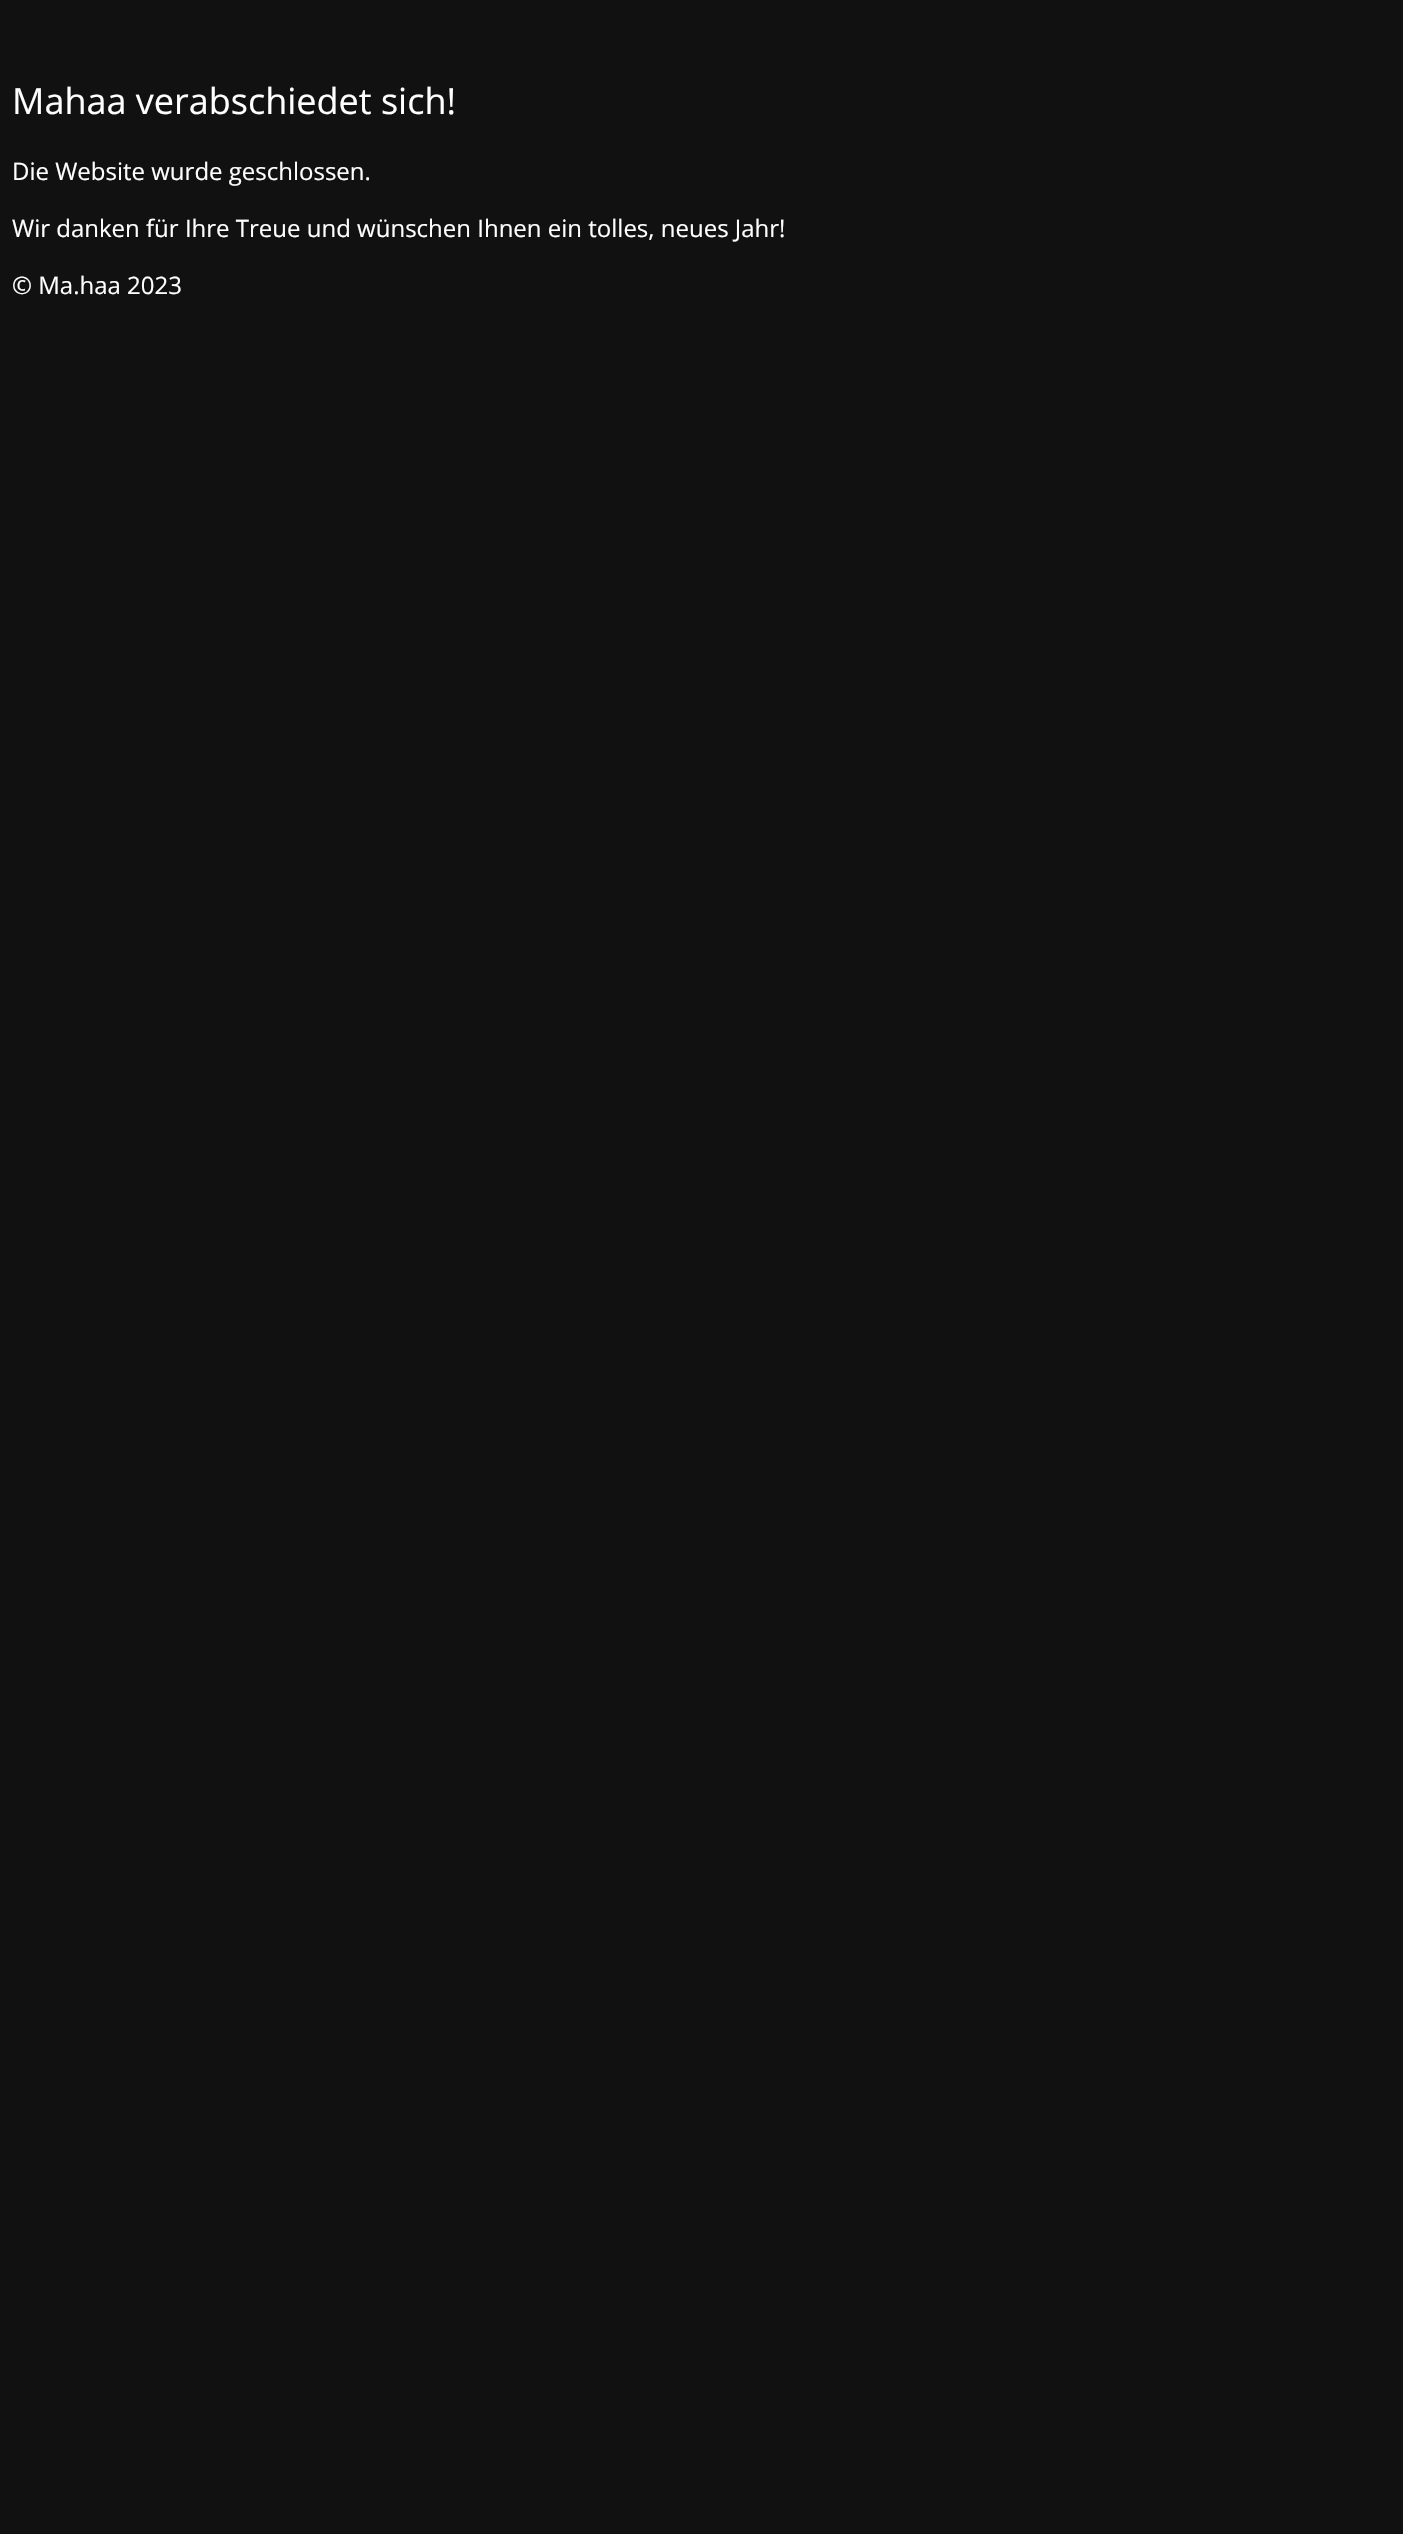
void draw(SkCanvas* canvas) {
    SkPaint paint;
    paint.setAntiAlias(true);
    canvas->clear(0xFF111111);
    SkFont font1(fontMgr->matchFamilyStyle("Open Sans", SkFontStyle::Normal()), 36);
    font1.setSubpixel(true);
    paint.setColor(0xFFFFFFFF);
    canvas->drawString("Mahaa verabschiedet sich!", 12, 114, font1, paint);
    SkFont font2(fontMgr->matchFamilyStyle("Open Sans", SkFontStyle::Normal()), 24);
    font2.setSubpixel(true);
    canvas->drawString("Die Website wurde geschlossen.", 12, 180, font2, paint);
    canvas->drawString("Wir danken für Ihre Treue und wünschen Ihnen ein tolles, neues Jahr!", 12, 237, font2, paint);
    canvas->drawString("© Ma.haa 2023", 12, 294, font2, paint);
}
